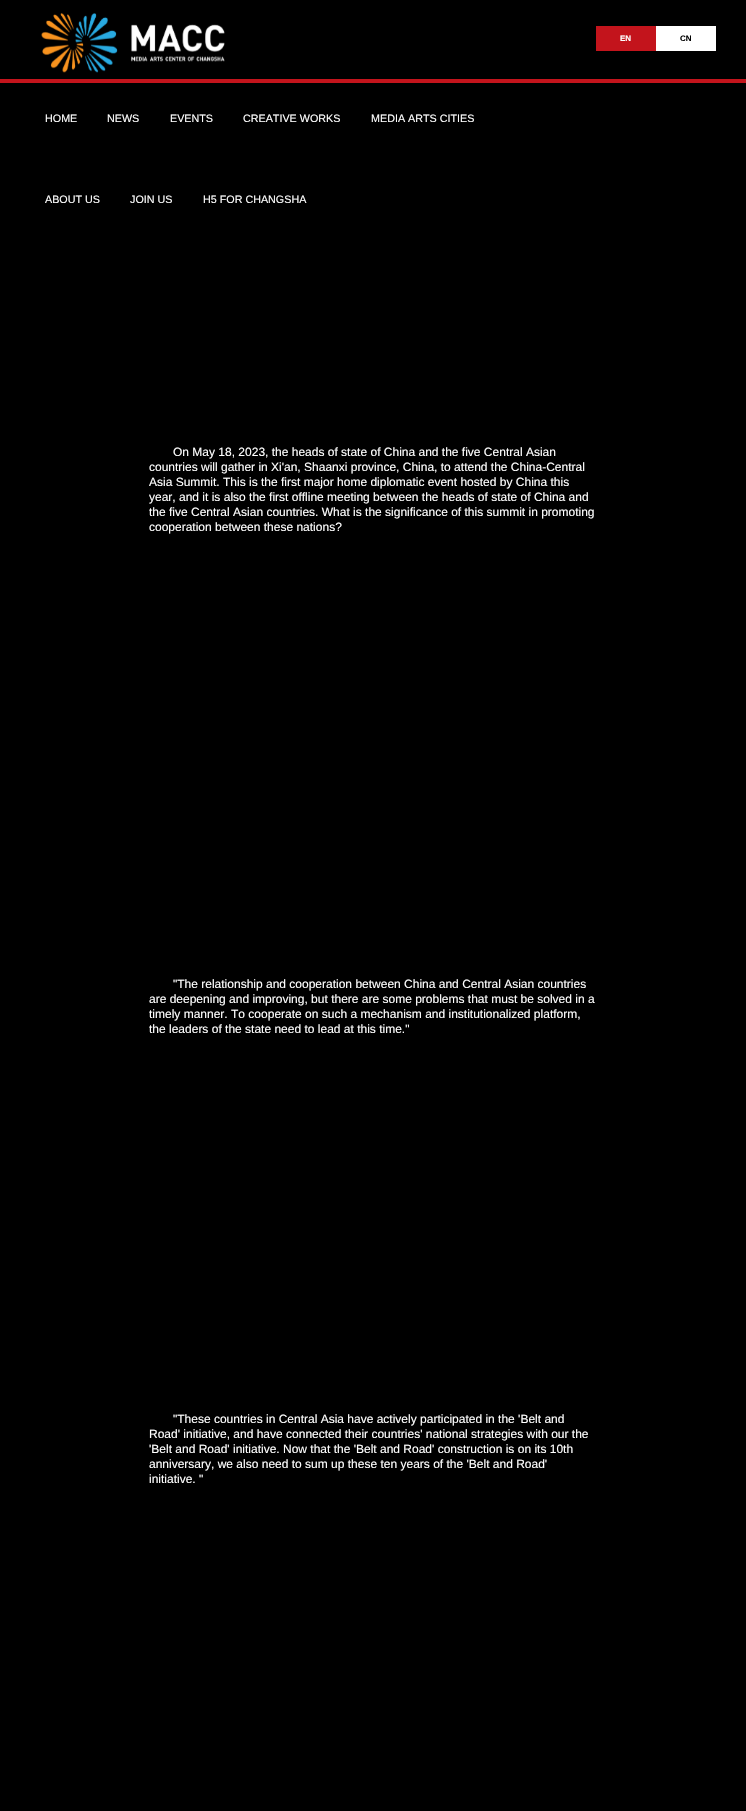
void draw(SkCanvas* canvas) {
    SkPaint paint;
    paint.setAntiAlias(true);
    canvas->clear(0xFF000000);
    paint.setColor(0xFFC3141C);
    canvas->drawRect(SkRect::MakeXYWH(0, 79, 746, 4), paint);
    canvas->drawImageRect(SkImages::DeferredFromEncodedData(SkData::MakeFromFileName("img1.png")), SkRect::MakeXYWH(41, 13, 184, 60), SkSamplingOptions());
    canvas->drawRect(SkRect::MakeXYWH(596, 26, 60, 25), paint);
    SkFont font1(fontMgr->matchFamilyStyle("Liberation Sans", SkFontStyle::Bold()), 8);
    font1.setSubpixel(true);
    paint.setColor(0xFFFFFFFF);
    canvas->drawString("EN", 620, 41, font1, paint);
    canvas->drawRect(SkRect::MakeXYWH(656, 26, 60, 25), paint);
    paint.setColor(0xFF000000);
    canvas->drawString("CN", 680, 41, font1, paint);
    SkFont font2(fontMgr->matchFamilyStyle("Liberation Sans", SkFontStyle::Normal()), 10.75f);
    font2.setSubpixel(true);
    paint.setColor(0xFFFFFFFF);
    canvas->drawString("HOME", 45, 122, font2, paint);
    canvas->drawString("NEWS", 107, 122, font2, paint);
    canvas->drawString("EVENTS", 170, 122, font2, paint);
    canvas->drawString("CREATIVE WORKS", 243, 122, font2, paint);
    canvas->drawString("MEDIA ARTS CITIES", 371, 122, font2, paint);
    canvas->drawString("ABOUT US", 45, 203, font2, paint);
    canvas->drawString("JOIN US", 130, 203, font2, paint);
    canvas->drawString("H5 FOR CHANGSHA", 203, 203, font2, paint);
    SkFont font3(fontMgr->matchFamilyStyle("Liberation Sans", SkFontStyle::Normal()), 12);
    font3.setSubpixel(true);
    canvas->drawString("On May 18, 2023, the heads of state of China and the five Central Asian", 173, 456, font3, paint);
    canvas->drawString("countries will gather in Xi'an, Shaanxi province, China, to attend the China-Central", 149, 471, font3, paint);
    canvas->drawString("Asia Summit. This is the first major home diplomatic event hosted by China this", 149, 486, font3, paint);
    canvas->drawString("year, and it is also the first offline meeting between the heads of state of China and", 149, 501, font3, paint);
    canvas->drawString("the five Central Asian countries. What is the significance of this summit in promoting", 149, 516, font3, paint);
    canvas->drawString("cooperation between these nations?", 149, 531, font3, paint);
    canvas->drawString("\"The relationship and cooperation between China and Central Asian countries", 173, 988, font3, paint);
    canvas->drawString("are deepening and improving, but there are some problems that must be solved in a", 149, 1003, font3, paint);
    canvas->drawString("timely manner. To cooperate on such a mechanism and institutionalized platform,", 149, 1018, font3, paint);
    canvas->drawString("the leaders of the state need to lead at this time.\"", 149, 1033, font3, paint);
    canvas->drawString("\"These countries in Central Asia have actively participated in the 'Belt and", 173, 1423, font3, paint);
    canvas->drawString("Road' initiative, and have connected their countries' national strategies with our the", 149, 1438, font3, paint);
    canvas->drawString("'Belt and Road' initiative. Now that the 'Belt and Road' construction is on its 10th", 149, 1453, font3, paint);
    canvas->drawString("anniversary, we also need to sum up these ten years of the 'Belt and Road'", 149, 1468, font3, paint);
    canvas->drawString("initiative. \"", 149, 1483, font3, paint);
}
